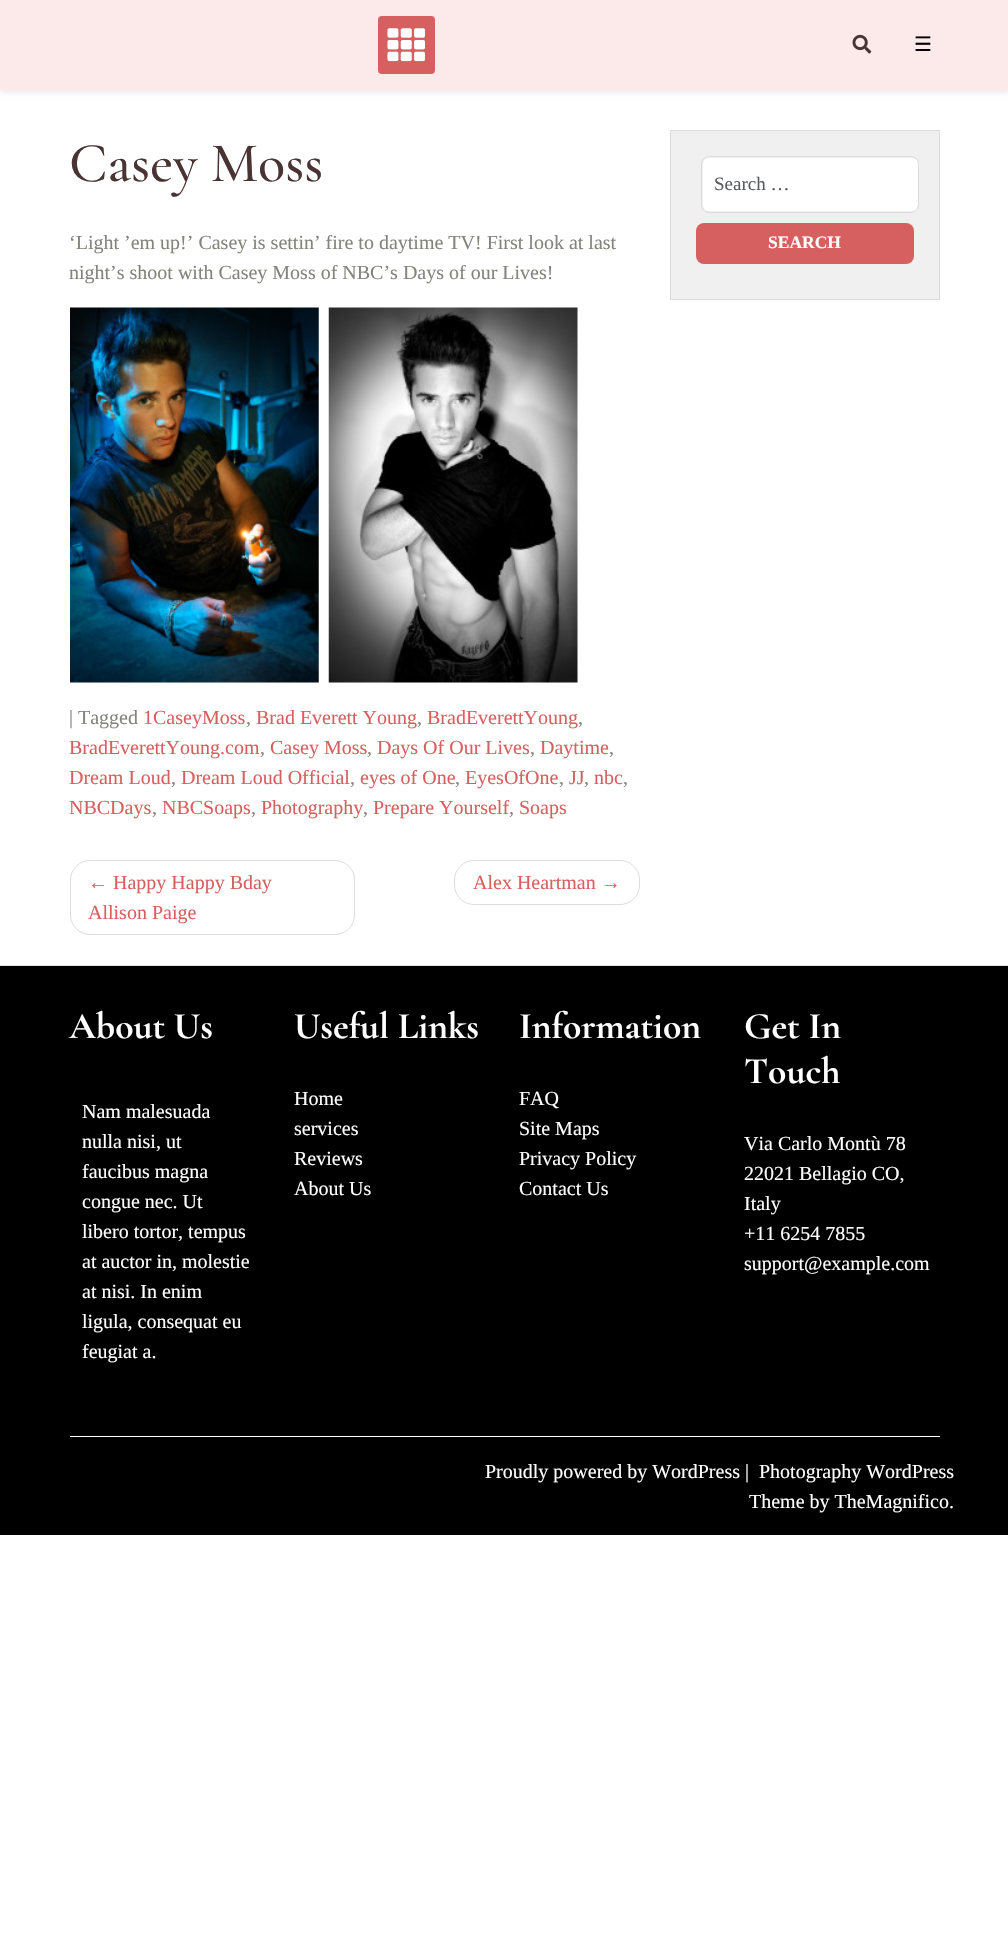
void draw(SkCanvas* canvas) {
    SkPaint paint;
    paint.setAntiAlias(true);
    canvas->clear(0xFFFFFFFF);
    paint.setColor(0x12000000);
    paint.setMaskFilter(SkMaskFilter::MakeBlur(kNormal_SkBlurStyle, 2.5f));
    canvas->drawRect(SkRect::MakeXYWH(0, 3, 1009, 90), paint);
    paint.setMaskFilter(nullptr);
    paint.setColor(0xFFFCE9E9);
    canvas->drawRect(SkRect::MakeXYWH(0, 0, 1008, 90), paint);
    paint.setColor(0xFFD66060);
    canvas->drawRoundRect(SkRect::MakeXYWH(378, 16, 57, 58), 4, 4, paint);
    canvas->drawImageRect(SkImages::DeferredFromEncodedData(SkData::MakeFromFileName("img1.png")), SkRect::MakeXYWH(387, 28, 38, 34), SkSamplingOptions());
    canvas->drawImageRect(SkImages::DeferredFromEncodedData(SkData::MakeFromFileName("img2.png")), SkRect::MakeXYWH(852, 34, 20, 20), SkSamplingOptions());
    SkFont font1(fontMgr->matchFamilyStyle("DejaVu Sans", SkFontStyle::Normal()), 20);
    font1.setSubpixel(true);
    paint.setColor(0xFF000000);
    canvas->drawString("☰", 914, 51, font1, paint);
    SkFont font2(fontMgr->matchFamilyStyle("Cormorant Garamond", SkFontStyle(500, SkFontStyle::kNormal_Width, SkFontStyle::kUpright_Slant)), 56.25f);
    font2.setSubpixel(true);
    paint.setColor(0xFF4A3333);
    canvas->drawString("Casey Moss", 69, 181, font2, paint);
    SkFont font3(fontMgr->matchFamilyStyle("Liberation Serif", SkFontStyle::Normal()), 20);
    font3.setSubpixel(true);
    paint.setColor(0xFF84847C);
    canvas->drawString("‘Light ’em up!’ Casey is settin’ fire to daytime TV! First look at last", 69, 249, font3, paint);
    canvas->drawString("night’s shoot with Casey Moss of NBC’s Days of our Lives!", 69, 279, font3, paint);
    canvas->drawImageRect(SkImages::DeferredFromEncodedData(SkData::MakeFromFileName("img3.png")), SkRect::MakeXYWH(70, 307, 249, 376), SkSamplingOptions());
    canvas->drawImageRect(SkImages::DeferredFromEncodedData(SkData::MakeFromFileName("img4.png")), SkRect::MakeXYWH(328, 307, 250, 376), SkSamplingOptions());
    canvas->drawString("| Tagged", 69, 724, font3, paint);
    paint.setColor(0xFFD66060);
    canvas->drawString("1CaseyMoss", 143, 724, font3, paint);
    paint.setColor(0xFF84847C);
    canvas->drawString(",", 246, 724, font3, paint);
    paint.setColor(0xFFD66060);
    canvas->drawString("Brad Everett Young", 256, 724, font3, paint);
    paint.setColor(0xFF84847C);
    canvas->drawString(",", 417, 724, font3, paint);
    paint.setColor(0xFFD66060);
    canvas->drawString("BradEverettYoung", 427, 724, font3, paint);
    paint.setColor(0xFF84847C);
    canvas->drawString(",", 578, 724, font3, paint);
    paint.setColor(0xFFD66060);
    canvas->drawString("BradEverettYoung.com", 69, 754, font3, paint);
    paint.setColor(0xFF84847C);
    canvas->drawString(",", 260, 754, font3, paint);
    paint.setColor(0xFFD66060);
    canvas->drawString("Casey Moss", 270, 754, font3, paint);
    paint.setColor(0xFF84847C);
    canvas->drawString(",", 367, 754, font3, paint);
    paint.setColor(0xFFD66060);
    canvas->drawString("Days Of Our Lives", 377, 754, font3, paint);
    paint.setColor(0xFF84847C);
    canvas->drawString(",", 530, 754, font3, paint);
    paint.setColor(0xFFD66060);
    canvas->drawString("Daytime", 540, 754, font3, paint);
    paint.setColor(0xFF84847C);
    canvas->drawString(",", 609, 754, font3, paint);
    paint.setColor(0xFFD66060);
    canvas->drawString("Dream Loud", 69, 784, font3, paint);
    paint.setColor(0xFF84847C);
    canvas->drawString(",", 171, 784, font3, paint);
    paint.setColor(0xFFD66060);
    canvas->drawString("Dream Loud Official", 181, 784, font3, paint);
    paint.setColor(0xFF84847C);
    canvas->drawString(",", 350, 784, font3, paint);
    paint.setColor(0xFFD66060);
    canvas->drawString("eyes of One", 360, 784, font3, paint);
    paint.setColor(0xFF84847C);
    canvas->drawString(",", 455, 784, font3, paint);
    paint.setColor(0xFFD66060);
    canvas->drawString("EyesOfOne", 465, 784, font3, paint);
    paint.setColor(0xFF84847C);
    canvas->drawString(",", 559, 784, font3, paint);
    paint.setColor(0xFFD66060);
    canvas->drawString("JJ", 569, 784, font3, paint);
    paint.setColor(0xFF84847C);
    canvas->drawString(",", 584, 784, font3, paint);
    paint.setColor(0xFFD66060);
    canvas->drawString("nbc", 594, 784, font3, paint);
    paint.setColor(0xFF84847C);
    canvas->drawString(",", 623, 784, font3, paint);
    paint.setColor(0xFFD66060);
    canvas->drawString("NBCDays", 69, 814, font3, paint);
    paint.setColor(0xFF84847C);
    canvas->drawString(",", 152, 814, font3, paint);
    paint.setColor(0xFFD66060);
    canvas->drawString("NBCSoaps", 162, 814, font3, paint);
    paint.setColor(0xFF84847C);
    canvas->drawString(",", 251, 814, font3, paint);
    paint.setColor(0xFFD66060);
    canvas->drawString("Photography", 261, 814, font3, paint);
    paint.setColor(0xFF84847C);
    canvas->drawString(",", 363, 814, font3, paint);
    paint.setColor(0xFFD66060);
    canvas->drawString("Prepare Yourself", 373, 814, font3, paint);
    paint.setColor(0xFF84847C);
    canvas->drawString(",", 509, 814, font3, paint);
    paint.setColor(0xFFD66060);
    canvas->drawString("Soaps", 519, 814, font3, paint);
    paint.setStyle(SkPaint::kStroke_Style);
    paint.setStrokeWidth(1);
    paint.setColor(0xFFDDDDDD);
    canvas->drawRoundRect(SkRect::MakeXYWH(70.5f, 860.5f, 284, 74), 19.5f, 19.5f, paint);
    paint.setStyle(SkPaint::kFill_Style);
    paint.setColor(0xFFD66060);
    canvas->drawString("← Happy Happy Bday", 88, 889, font3, paint);
    canvas->drawString("Allison Paige", 88, 919, font3, paint);
    paint.setStyle(SkPaint::kStroke_Style);
    paint.setColor(0xFFDDDDDD);
    canvas->drawRoundRect(SkRect::MakeXYWH(454.5f, 860.5f, 185, 44), 19.5f, 19.5f, paint);
    paint.setStyle(SkPaint::kFill_Style);
    paint.setColor(0xFFD66060);
    canvas->drawString("Alex Heartman →", 473, 889, font3, paint);
    paint.setColor(0xFFF0F0F0);
    canvas->drawRect(SkRect::MakeXYWH(670.5f, 130.5f, 269, 169), paint);
    paint.setStyle(SkPaint::kStroke_Style);
    paint.setColor(0xFFDCDCDC);
    canvas->drawRect(SkRect::MakeXYWH(670.5f, 130.5f, 269, 169), paint);
    paint.setStyle(SkPaint::kFill_Style);
    paint.setColor(0xFFFFFFFF);
    canvas->drawRoundRect(SkRect::MakeXYWH(703, 158, 215, 53), 6, 6, paint);
    paint.setStyle(SkPaint::kStroke_Style);
    paint.setColor(0xFFDCDCDC);
    canvas->drawRoundRect(SkRect::MakeXYWH(701.5f, 156.5f, 217, 56), 7.5f, 7.5f, paint);
    SkFont font4(fontMgr->matchFamilyStyle("Liberation Serif", SkFontStyle::Normal()), 19);
    font4.setSubpixel(true);
    paint.setStyle(SkPaint::kFill_Style);
    paint.setColor(0xFF595C5F);
    canvas->drawString("Search …", 714, 190, font4, paint);
    paint.setColor(0xFFD66060);
    canvas->drawRoundRect(SkRect::MakeXYWH(696, 223, 218, 41), 8, 8, paint);
    SkFont font5(fontMgr->matchFamilyStyle("Liberation Serif", SkFontStyle::Bold()), 17.5f);
    font5.setSubpixel(true);
    paint.setColor(0xFFFFFFFF);
    canvas->drawString("SEARCH", 768, 248, font5, paint);
    paint.setColor(0xFF000000);
    canvas->drawRect(SkRect::MakeXYWH(0, 966, 1008, 569), paint);
    paint.setColor(0xFFDEE2E6);
    canvas->drawRect(SkRect::MakeXYWH(0, 965, 1008, 1), paint);
    paint.setColor(0xFFFFFFFF);
    canvas->drawRect(SkRect::MakeXYWH(70, 1436, 870, 1), paint);
    SkFont font6(fontMgr->matchFamilyStyle("Cormorant Garamond", SkFontStyle::Bold()), 37.5f);
    font6.setSubpixel(true);
    canvas->drawString("About Us", 69, 1038, font6, paint);
    canvas->drawString("Nam malesuada", 82, 1118, font3, paint);
    canvas->drawString("nulla nisi, ut", 82, 1148, font3, paint);
    canvas->drawString("faucibus magna", 82, 1178, font3, paint);
    canvas->drawString("congue nec. Ut", 82, 1208, font3, paint);
    canvas->drawString("libero tortor, tempus", 82, 1238, font3, paint);
    canvas->drawString("at auctor in, molestie", 82, 1268, font3, paint);
    canvas->drawString("at nisi. In enim", 82, 1298, font3, paint);
    canvas->drawString("ligula, consequat eu", 82, 1328, font3, paint);
    canvas->drawString("feugiat a.", 82, 1358, font3, paint);
    canvas->drawString("Useful Links", 294, 1038, font6, paint);
    canvas->drawString("Home", 294, 1105, font3, paint);
    canvas->drawString("services", 294, 1135, font3, paint);
    canvas->drawString("Reviews", 294, 1165, font3, paint);
    canvas->drawString("About Us", 294, 1195, font3, paint);
    canvas->drawString("Information", 519, 1038, font6, paint);
    canvas->drawString("FAQ", 519, 1105, font3, paint);
    canvas->drawString("Site Maps", 519, 1135, font3, paint);
    canvas->drawString("Privacy Policy", 519, 1165, font3, paint);
    canvas->drawString("Contact Us", 519, 1195, font3, paint);
    canvas->drawString("Get In", 744, 1038, font6, paint);
    canvas->drawString("Touch", 744, 1083, font6, paint);
    canvas->drawString("Via Carlo Montù 78", 744, 1150, font3, paint);
    canvas->drawString("22021 Bellagio CO,", 744, 1180, font3, paint);
    canvas->drawString("Italy", 744, 1210, font3, paint);
    canvas->drawString("+11 6254 7855", 744, 1240, font3, paint);
    canvas->drawString("support@example.com", 744, 1270, font3, paint);
    canvas->drawString("Proudly powered by WordPress |", 485, 1478, font3, paint);
    canvas->drawString("Photography WordPress", 759, 1478, font3, paint);
    canvas->drawString("Theme by TheMagnifico.", 749, 1508, font3, paint);
}
